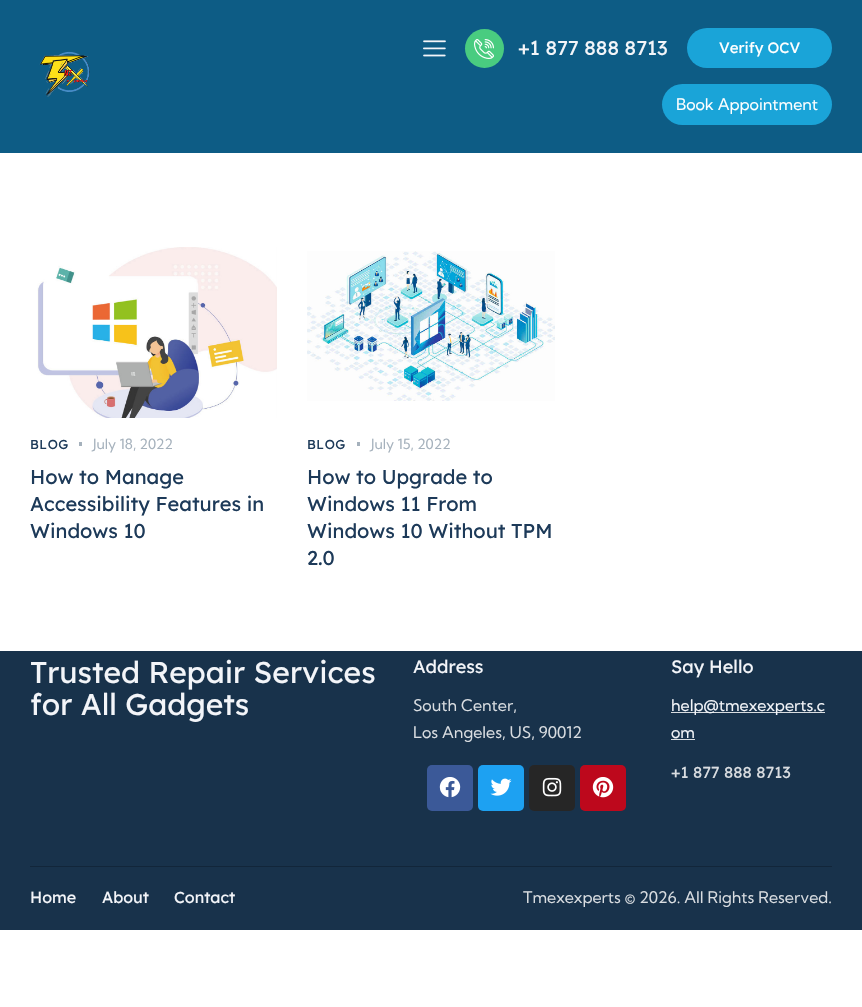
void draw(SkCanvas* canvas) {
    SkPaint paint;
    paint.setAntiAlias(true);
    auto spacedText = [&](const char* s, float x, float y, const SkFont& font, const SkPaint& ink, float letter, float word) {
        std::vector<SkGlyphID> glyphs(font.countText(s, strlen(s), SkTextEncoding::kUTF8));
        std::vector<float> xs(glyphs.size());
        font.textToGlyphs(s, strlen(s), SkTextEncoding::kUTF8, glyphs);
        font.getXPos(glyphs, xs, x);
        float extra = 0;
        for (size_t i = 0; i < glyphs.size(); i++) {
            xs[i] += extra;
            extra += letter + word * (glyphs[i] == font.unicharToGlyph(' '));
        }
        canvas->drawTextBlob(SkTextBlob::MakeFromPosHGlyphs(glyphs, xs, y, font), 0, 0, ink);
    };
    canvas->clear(0xFFFFFFFF);
    paint.setColor(0xFF0D5C85);
    canvas->drawRect(SkRect::MakeXYWH(0, 0, 862, 153), paint);
    canvas->drawImageRect(SkImages::DeferredFromEncodedData(SkData::MakeFromFileName("img1.png")), SkRect::MakeXYWH(39, 51, 51, 46), SkSamplingOptions());
    canvas->drawImageRect(SkImages::DeferredFromEncodedData(SkData::MakeFromFileName("img2.png")), SkRect::MakeXYWH(423, 40, 23, 17), SkSamplingOptions());
    paint.setColor(0xFF49CC80);
    canvas->drawCircle(484.5f, 48.5f, 19.5f, paint);
    canvas->drawImageRect(SkImages::DeferredFromEncodedData(SkData::MakeFromFileName("img3.png")), SkRect::MakeXYWH(474, 39, 20, 20), SkSamplingOptions());
    SkFont font1(fontMgr->matchFamilyStyle("Lexend Deca", SkFontStyle::Normal()), 20);
    font1.setSubpixel(true);
    paint.setColor(0xFFF3F5F9);
    canvas->drawString("+1 877 888 8713", 518, 55, font1, paint);
    paint.setColor(0xFF1AA4D8);
    canvas->drawRoundRect(SkRect::MakeXYWH(687, 28, 145, 40), 20, 20, paint);
    SkFont font2(fontMgr->matchFamilyStyle("Lexend Deca", SkFontStyle::Normal()), 15);
    font2.setSubpixel(true);
    paint.setColor(0xFFFFFFFF);
    canvas->drawString("Verify OCV", 719, 53, font2, paint);
    paint.setColor(0xFF1AA4D8);
    canvas->drawRoundRect(SkRect::MakeXYWH(662, 84, 170, 41), 20.5f, 20.5f, paint);
    SkFont font3(fontMgr->matchFamilyStyle("Kumbh Sans", SkFontStyle::Normal()), 16);
    font3.setSubpixel(true);
    paint.setColor(0xFFFFFFFF);
    canvas->drawString("Book Appointment", 676, 110, font3, paint);
    canvas->drawImageRect(SkImages::DeferredFromEncodedData(SkData::MakeFromFileName("img4.png")), SkRect::MakeXYWH(37, 247, 240, 171), SkSamplingOptions());
    SkFont font4(fontMgr->matchFamilyStyle("Lexend Deca", SkFontStyle::Normal()), 13);
    font4.setSubpixel(true);
    paint.setColor(0xFF1D3A59);
    spacedText("BLOG", 30, 449, font4, paint, 0.5f, 0);
    paint.setColor(0xFFA5B1BC);
    canvas->drawRect(SkRect::MakeXYWH(79, 442, 3, 4), paint);
    SkFont font5(fontMgr->matchFamilyStyle("Kumbh Sans", SkFontStyle::Normal()), 14);
    font5.setSubpixel(true);
    canvas->drawString("July 18, 2022", 93, 449, font5, paint);
    paint.setColor(0xFF1D3A59);
    canvas->drawString("How to Manage", 30, 484, font1, paint);
    canvas->drawString("Accessibility Features in", 30, 511, font1, paint);
    canvas->drawString("Windows 10", 30, 538, font1, paint);
    canvas->drawImageRect(SkImages::DeferredFromEncodedData(SkData::MakeFromFileName("img5.png")), SkRect::MakeXYWH(307, 251, 248, 150), SkSamplingOptions());
    spacedText("BLOG", 307, 449, font4, paint, 0.5f, 0);
    paint.setColor(0xFFA5B1BC);
    canvas->drawRect(SkRect::MakeXYWH(357, 442, 3, 4), paint);
    canvas->drawString("July 15, 2022", 371, 449, font5, paint);
    paint.setColor(0xFF1D3A59);
    canvas->drawString("How to Upgrade to", 307, 484, font1, paint);
    canvas->drawString("Windows 11 From", 307, 511, font1, paint);
    canvas->drawString("Windows 10 Without TPM", 307, 538, font1, paint);
    canvas->drawString("2.0", 307, 565, font1, paint);
    paint.setColor(0xFF18324B);
    canvas->drawRect(SkRect::MakeXYWH(0, 651, 862, 279), paint);
    SkFont font6(fontMgr->matchFamilyStyle("Lexend Deca", SkFontStyle::Normal()), 30);
    font6.setSubpixel(true);
    paint.setColor(0xFFF3F5F9);
    canvas->drawString("Trusted Repair Services", 30, 683, font6, paint);
    canvas->drawString("for All Gadgets", 30, 715, font6, paint);
    SkFont font7(fontMgr->matchFamilyStyle("Lexend Deca", SkFontStyle::Normal()), 18);
    font7.setSubpixel(true);
    canvas->drawString("Address", 413, 673, font7, paint);
    paint.setColor(0xFFD9DDE1);
    canvas->drawString("South Center,", 413, 711, font3, paint);
    canvas->drawString("Los Angeles, US, 90012", 413, 738, font3, paint);
    paint.setColor(0xFF3B5998);
    canvas->drawRoundRect(SkRect::MakeXYWH(427, 765, 46, 46), 5, 5, paint);
    canvas->drawImageRect(SkImages::DeferredFromEncodedData(SkData::MakeFromFileName("img6.png")), SkRect::MakeXYWH(439, 777, 22, 21), SkSamplingOptions());
    paint.setColor(0xFF1DA1F2);
    canvas->drawRoundRect(SkRect::MakeXYWH(478, 765, 46, 46), 5, 5, paint);
    canvas->drawImageRect(SkImages::DeferredFromEncodedData(SkData::MakeFromFileName("img7.png")), SkRect::MakeXYWH(490, 778, 22, 18), SkSamplingOptions());
    paint.setColor(0xFF262626);
    canvas->drawRoundRect(SkRect::MakeXYWH(529, 765, 46, 46), 5, 5, paint);
    canvas->drawImageRect(SkImages::DeferredFromEncodedData(SkData::MakeFromFileName("img8.png")), SkRect::MakeXYWH(542, 777, 20, 20), SkSamplingOptions());
    paint.setColor(0xFFBD081C);
    canvas->drawRoundRect(SkRect::MakeXYWH(580, 765, 46, 46), 5, 5, paint);
    canvas->drawImageRect(SkImages::DeferredFromEncodedData(SkData::MakeFromFileName("img9.png")), SkRect::MakeXYWH(592, 777, 22, 21), SkSamplingOptions());
    paint.setColor(0xFFF3F5F9);
    canvas->drawString("Say Hello", 671, 673, font7, paint);
    paint.setColor(0xFFD9DDE1);
    canvas->drawRect(SkRect::MakeXYWH(671, 712, 154, 1), paint);
    paint.setColor(0xFFF3F5F9);
    canvas->drawString("help@tmexexperts.c", 671, 711, font3, paint);
    canvas->drawString("om", 671, 738, font3, paint);
    paint.setColor(0xFFD9DDE1);
    canvas->drawRect(SkRect::MakeXYWH(671, 739, 24, 1), paint);
    SkFont font8(fontMgr->matchFamilyStyle("Lexend Deca", SkFontStyle::Normal()), 16);
    font8.setSubpixel(true);
    canvas->drawString("+1 877 888 8713", 671, 778, font8, paint);
    paint.setColor(0xFF12263A);
    canvas->drawRect(SkRect::MakeXYWH(30, 866, 802, 1), paint);
    paint.setColor(0xFFF3F5F9);
    canvas->drawString("Home", 30, 903, font8, paint);
    canvas->drawString("About", 102, 903, font8, paint);
    canvas->drawString("Contact", 174, 903, font8, paint);
    paint.setColor(0xFFD9DDE1);
    canvas->drawString("Tmexexperts © 2026. All Rights Reserved.", 523, 903, font3, paint);
}
